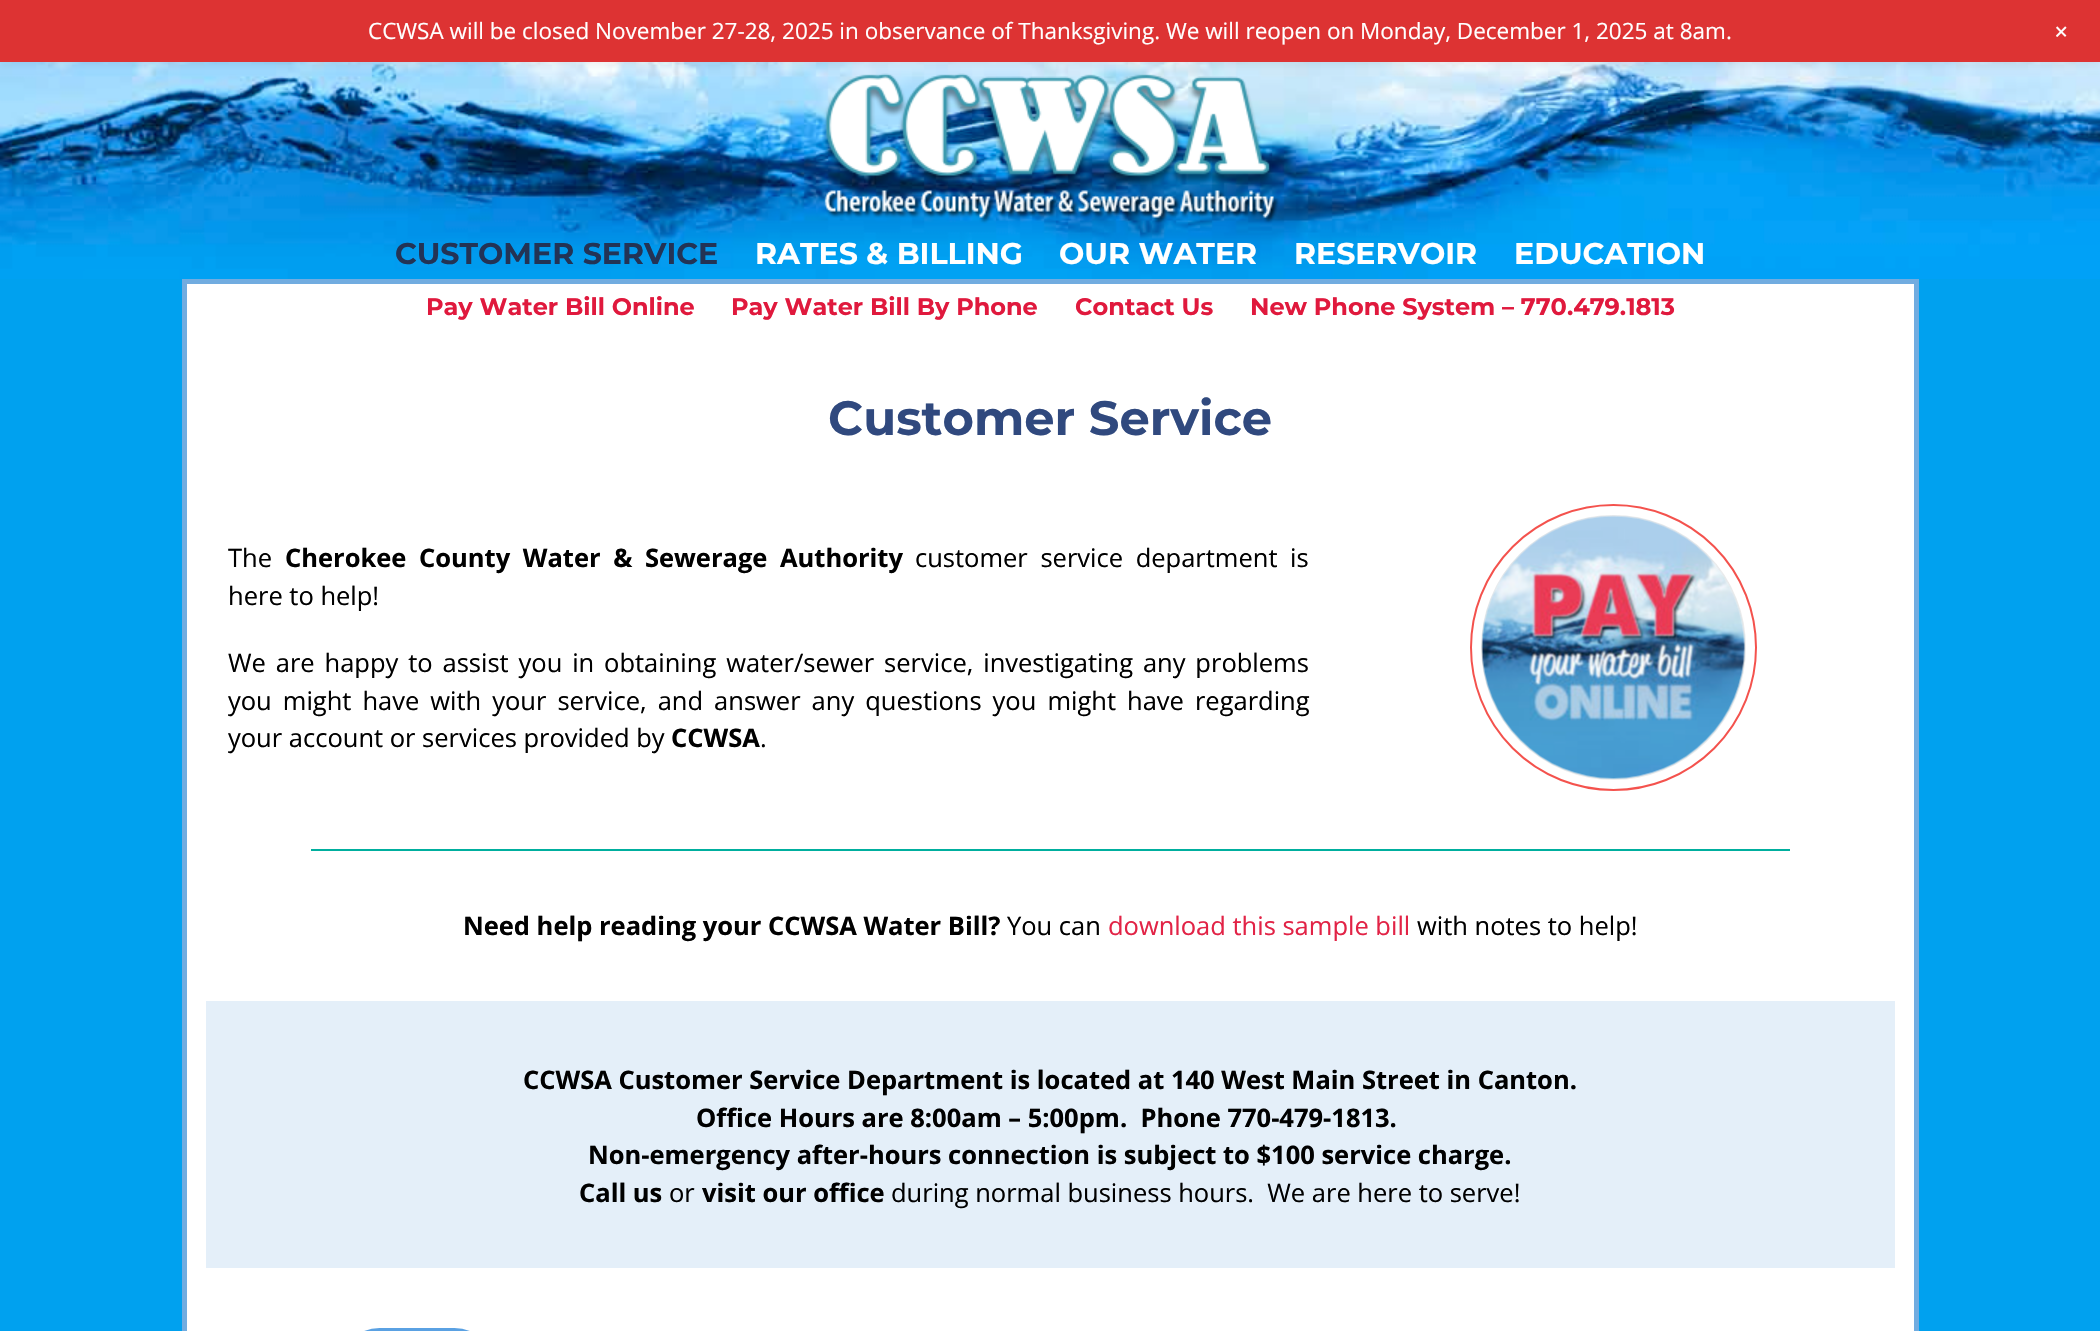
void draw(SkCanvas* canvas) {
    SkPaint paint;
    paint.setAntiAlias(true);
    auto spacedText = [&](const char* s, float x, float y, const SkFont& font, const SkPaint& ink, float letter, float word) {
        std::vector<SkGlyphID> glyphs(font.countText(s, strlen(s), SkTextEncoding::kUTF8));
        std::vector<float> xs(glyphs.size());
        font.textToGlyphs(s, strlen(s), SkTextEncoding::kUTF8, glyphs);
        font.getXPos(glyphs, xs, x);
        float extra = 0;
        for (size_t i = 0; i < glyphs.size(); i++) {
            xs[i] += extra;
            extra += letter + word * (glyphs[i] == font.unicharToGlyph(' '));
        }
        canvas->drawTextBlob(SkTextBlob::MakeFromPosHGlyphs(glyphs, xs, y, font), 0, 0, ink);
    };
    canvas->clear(0xFF00A1EF);
    canvas->drawImageRect(SkImages::DeferredFromEncodedData(SkData::MakeFromFileName("img1.png")), SkRect::MakeXYWH(0, 62, 2100, 217), SkSamplingOptions());
    canvas->drawImageRect(SkImages::DeferredFromEncodedData(SkData::MakeFromFileName("img2.png")), SkRect::MakeXYWH(822, 73, 458, 151), SkSamplingOptions());
    paint.setColor(0x0D000000);
    paint.setMaskFilter(SkMaskFilter::MakeBlur(kNormal_SkBlurStyle, 3));
    canvas->drawRect(SkRect::MakeXYWH(0, 5, 2100, 61), paint);
    paint.setMaskFilter(nullptr);
    paint.setColor(0xFFDD3333);
    canvas->drawRect(SkRect::MakeXYWH(0, 0, 2100, 62), paint);
    SkFont font1(fontMgr->matchFamilyStyle("Open Sans", SkFontStyle::Normal()), 22.5f);
    font1.setSubpixel(true);
    paint.setColor(0xFFFFFFFF);
    canvas->drawString("CCWSA will be closed November 27-28, 2025 in observance of Thanksgiving. We will reopen on Monday, December 1, 2025 at 8am.", 368, 39, font1, paint);
    SkFont font2(fontMgr->matchFamilyStyle("Open Sans", SkFontStyle::Normal()), 27);
    font2.setSubpixel(true);
    canvas->save();
    canvas->rotate(45, 2049, 33);
    canvas->drawString("+", 2049, 33, font2, paint);
    canvas->restore();
    SkFont font3(fontMgr->matchFamilyStyle("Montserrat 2", SkFontStyle::Bold()), 30);
    font3.setSubpixel(true);
    paint.setColor(0xFF233355);
    canvas->drawString("CUSTOMER SERVICE", 395, 264, font3, paint);
    paint.setColor(0xFFFFFFFF);
    canvas->drawString("RATES & BILLING", 755, 264, font3, paint);
    canvas->drawString("OUR WATER", 1059, 264, font3, paint);
    canvas->drawString("RESERVOIR", 1294, 264, font3, paint);
    canvas->drawString("EDUCATION", 1514, 264, font3, paint);
    canvas->drawRect(SkRect::MakeXYWH(184.5f, 281.5f, 1732, 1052), paint);
    paint.setStyle(SkPaint::kStroke_Style);
    paint.setStrokeWidth(5);
    paint.setColor(0xFF71ACE0);
    canvas->drawRect(SkRect::MakeXYWH(184.5f, 281.5f, 1732, 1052), paint);
    SkFont font4(fontMgr->matchFamilyStyle("Montserrat", SkFontStyle::Bold()), 24);
    font4.setSubpixel(true);
    paint.setStyle(SkPaint::kFill_Style);
    paint.setColor(0xFFE0193D);
    canvas->drawString("Pay Water Bill Online", 426, 315, font4, paint);
    canvas->drawString("Pay Water Bill By Phone", 731, 315, font4, paint);
    canvas->drawString("Contact Us", 1075, 315, font4, paint);
    canvas->drawString("New Phone System – 770.479.1813", 1250, 315, font4, paint);
    SkFont font5(fontMgr->matchFamilyStyle("Montserrat", SkFontStyle::Bold()), 48);
    font5.setSubpixel(true);
    paint.setColor(0xFF30497E);
    canvas->drawString("Customer Service", 828, 435, font5, paint);
    SkFont font6(fontMgr->matchFamilyStyle("Open Sans", SkFontStyle::Normal()), 25.5f);
    font6.setSubpixel(true);
    paint.setColor(0xFF000000);
    canvas->drawString("The", 228, 567, font6, paint);
    SkFont font7(fontMgr->matchFamilyStyle("Open Sans", SkFontStyle::Bold()), 25.5f);
    font7.setSubpixel(true);
    spacedText("Cherokee County Water & Sewerage Authority", 285, 567, font7, paint, 0, 6);
    spacedText("customer service department is", 915, 567, font6, paint, 0, 6);
    canvas->drawString("here to help!", 228, 605, font6, paint);
    spacedText("We are happy to assist you in obtaining water/sewer service, investigating any problems", 228, 672, font6, paint, 0, 3.25f);
    spacedText("you might have with your service, and answer any questions you might have regarding", 228, 710, font6, paint, 0, 4.4f);
    canvas->drawString("your account or services provided by", 228, 747, font6, paint);
    canvas->drawString("CCWSA", 671, 747, font7, paint);
    canvas->drawString(".", 760, 747, font6, paint);
    paint.setStyle(SkPaint::kStroke_Style);
    paint.setStrokeWidth(2);
    paint.setColor(0xFFF4524D);
    canvas->drawCircle(1613.5f, 647.5f, 142.5f, paint);
    paint.setColor(0xFFEBEBEB);
    canvas->drawCircle(1613.5f, 647.5f, 131.5f, paint);
    canvas->drawImageRect(SkImages::DeferredFromEncodedData(SkData::MakeFromFileName("img3.png")), SkRect::MakeXYWH(1481, 515, 264, 264), SkSamplingOptions());
    paint.setStyle(SkPaint::kFill_Style);
    paint.setColor(0xFF00AF9E);
    canvas->drawRect(SkRect::MakeXYWH(311, 849, 1479, 2), paint);
    paint.setColor(0xFF000000);
    canvas->drawString("Need help reading your CCWSA Water Bill?", 463, 935, font7, paint);
    canvas->drawString("You can", 1007, 935, font6, paint);
    paint.setColor(0xFFE22346);
    canvas->drawString("download this sample bill", 1108, 935, font6, paint);
    paint.setColor(0xFF000000);
    canvas->drawString("with notes to help!", 1417, 935, font6, paint);
    paint.setColor(0xFFE4EFF9);
    canvas->drawRect(SkRect::MakeXYWH(206, 1001, 1689, 267), paint);
    paint.setColor(0xFF000000);
    canvas->drawString("CCWSA Customer Service Department is located at 140 West Main Street in Canton.", 523, 1089, font7, paint);
    canvas->drawString("Office Hours are 8:00am – 5:00pm.  Phone 770-479-1813.", 696, 1127, font7, paint);
    canvas->drawString("Non-emergency after-hours connection is subject to $100 service charge.", 588, 1164, font7, paint);
    canvas->drawString("Call us", 579, 1202, font7, paint);
    canvas->drawString("or", 669, 1202, font6, paint);
    canvas->drawString("visit our office", 702, 1202, font7, paint);
    canvas->drawString("during normal business hours.  We are here to serve!", 891, 1202, font6, paint);
    paint.setColor(0xFF5AA1E3);
    canvas->drawRoundRect(SkRect::MakeXYWH(339, 1328, 156, 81), 78, 78, paint);
}
